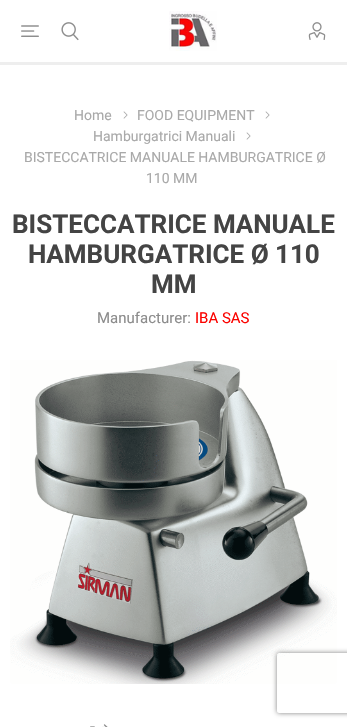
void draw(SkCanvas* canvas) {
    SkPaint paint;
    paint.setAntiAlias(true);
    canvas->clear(0xFFFFFFFF);
    paint.setColor(0xFFEEEEEE);
    canvas->drawRect(SkRect::MakeXYWH(0, 62, 347, 3), paint);
    canvas->drawImageRect(SkImages::DeferredFromEncodedData(SkData::MakeFromFileName("img1.png")), SkRect::MakeXYWH(21, 25, 18, 12), SkSamplingOptions());
    canvas->drawImageRect(SkImages::DeferredFromEncodedData(SkData::MakeFromFileName("img2.png")), SkRect::MakeXYWH(61, 22, 18, 19), SkSamplingOptions());
    canvas->drawImageRect(SkImages::DeferredFromEncodedData(SkData::MakeFromFileName("img3.png")), SkRect::MakeXYWH(169, 11, 48, 40), SkSamplingOptions());
    canvas->drawImageRect(SkImages::DeferredFromEncodedData(SkData::MakeFromFileName("img4.png")), SkRect::MakeXYWH(308, 22, 18, 18), SkSamplingOptions());
    SkFont font1(fontMgr->matchFamilyStyle("Roboto", SkFontStyle::Normal()), 14);
    font1.setSubpixel(true);
    paint.setColor(0xFFA9A9A9);
    canvas->drawString("Home", 74, 120, font1, paint);
    canvas->drawImageRect(SkImages::DeferredFromEncodedData(SkData::MakeFromFileName("img5.png")), SkRect::MakeXYWH(123, 111, 5, 8), SkSamplingOptions());
    canvas->drawString("FOOD EQUIPMENT", 137, 120, font1, paint);
    canvas->drawImageRect(SkImages::DeferredFromEncodedData(SkData::MakeFromFileName("img5.png")), SkRect::MakeXYWH(265, 111, 5, 8), SkSamplingOptions());
    canvas->drawString("Hamburgatrici Manuali", 93, 141, font1, paint);
    canvas->drawImageRect(SkImages::DeferredFromEncodedData(SkData::MakeFromFileName("img5.png")), SkRect::MakeXYWH(246, 132, 5, 8), SkSamplingOptions());
    canvas->drawString("BISTECCATRICE MANUALE HAMBURGATRICE Ø", 24, 162, font1, paint);
    canvas->drawString("110 MM", 146, 183, font1, paint);
    SkFont font2(fontMgr->matchFamilyStyle("Roboto", SkFontStyle::Bold()), 26);
    font2.setSubpixel(true);
    paint.setColor(0xFF444444);
    canvas->drawString("BISTECCATRICE MANUALE", 12, 233, font2, paint);
    canvas->drawString("HAMBURGATRICE Ø 110", 28, 263, font2, paint);
    canvas->drawString("MM", 151, 293, font2, paint);
    SkFont font3(fontMgr->matchFamilyStyle("Roboto", SkFontStyle::Normal()), 15);
    font3.setSubpixel(true);
    paint.setColor(0xFF8C8C8C);
    canvas->drawString("Manufacturer:", 97, 323, font3, paint);
    paint.setColor(0xFFFB0300);
    canvas->drawString("IBA SAS", 195, 323, font3, paint);
    canvas->drawImageRect(SkImages::DeferredFromEncodedData(SkData::MakeFromFileName("img6.png")), SkRect::MakeXYWH(10, 360, 327, 324), SkSamplingOptions());
    canvas->drawImageRect(SkImages::DeferredFromEncodedData(SkData::MakeFromFileName("img7.png")), SkRect::MakeXYWH(90, 724, 18, 3), SkSamplingOptions());
    canvas->save();
    canvas->clipPath(SkPathBuilder(SkPathFillType::kEvenOdd).moveTo(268, 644).lineTo(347, 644).lineTo(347, 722).lineTo(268, 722).close().moveTo(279, 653).lineTo(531, 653).cubicTo(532, 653, 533, 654, 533, 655).lineTo(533, 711).cubicTo(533, 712, 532, 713, 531, 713).lineTo(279, 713).cubicTo(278, 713, 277, 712, 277, 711).lineTo(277, 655).cubicTo(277, 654, 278, 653, 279, 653).close().detach(), true);
    paint.setColor(0xFF808080);
    paint.setMaskFilter(SkMaskFilter::MakeBlur(kNormal_SkBlurStyle, 2.5f));
    canvas->drawRoundRect(SkRect::MakeXYWH(277, 653, 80, 60), 2, 2, paint);
    paint.setMaskFilter(nullptr);
    canvas->restore();
}
